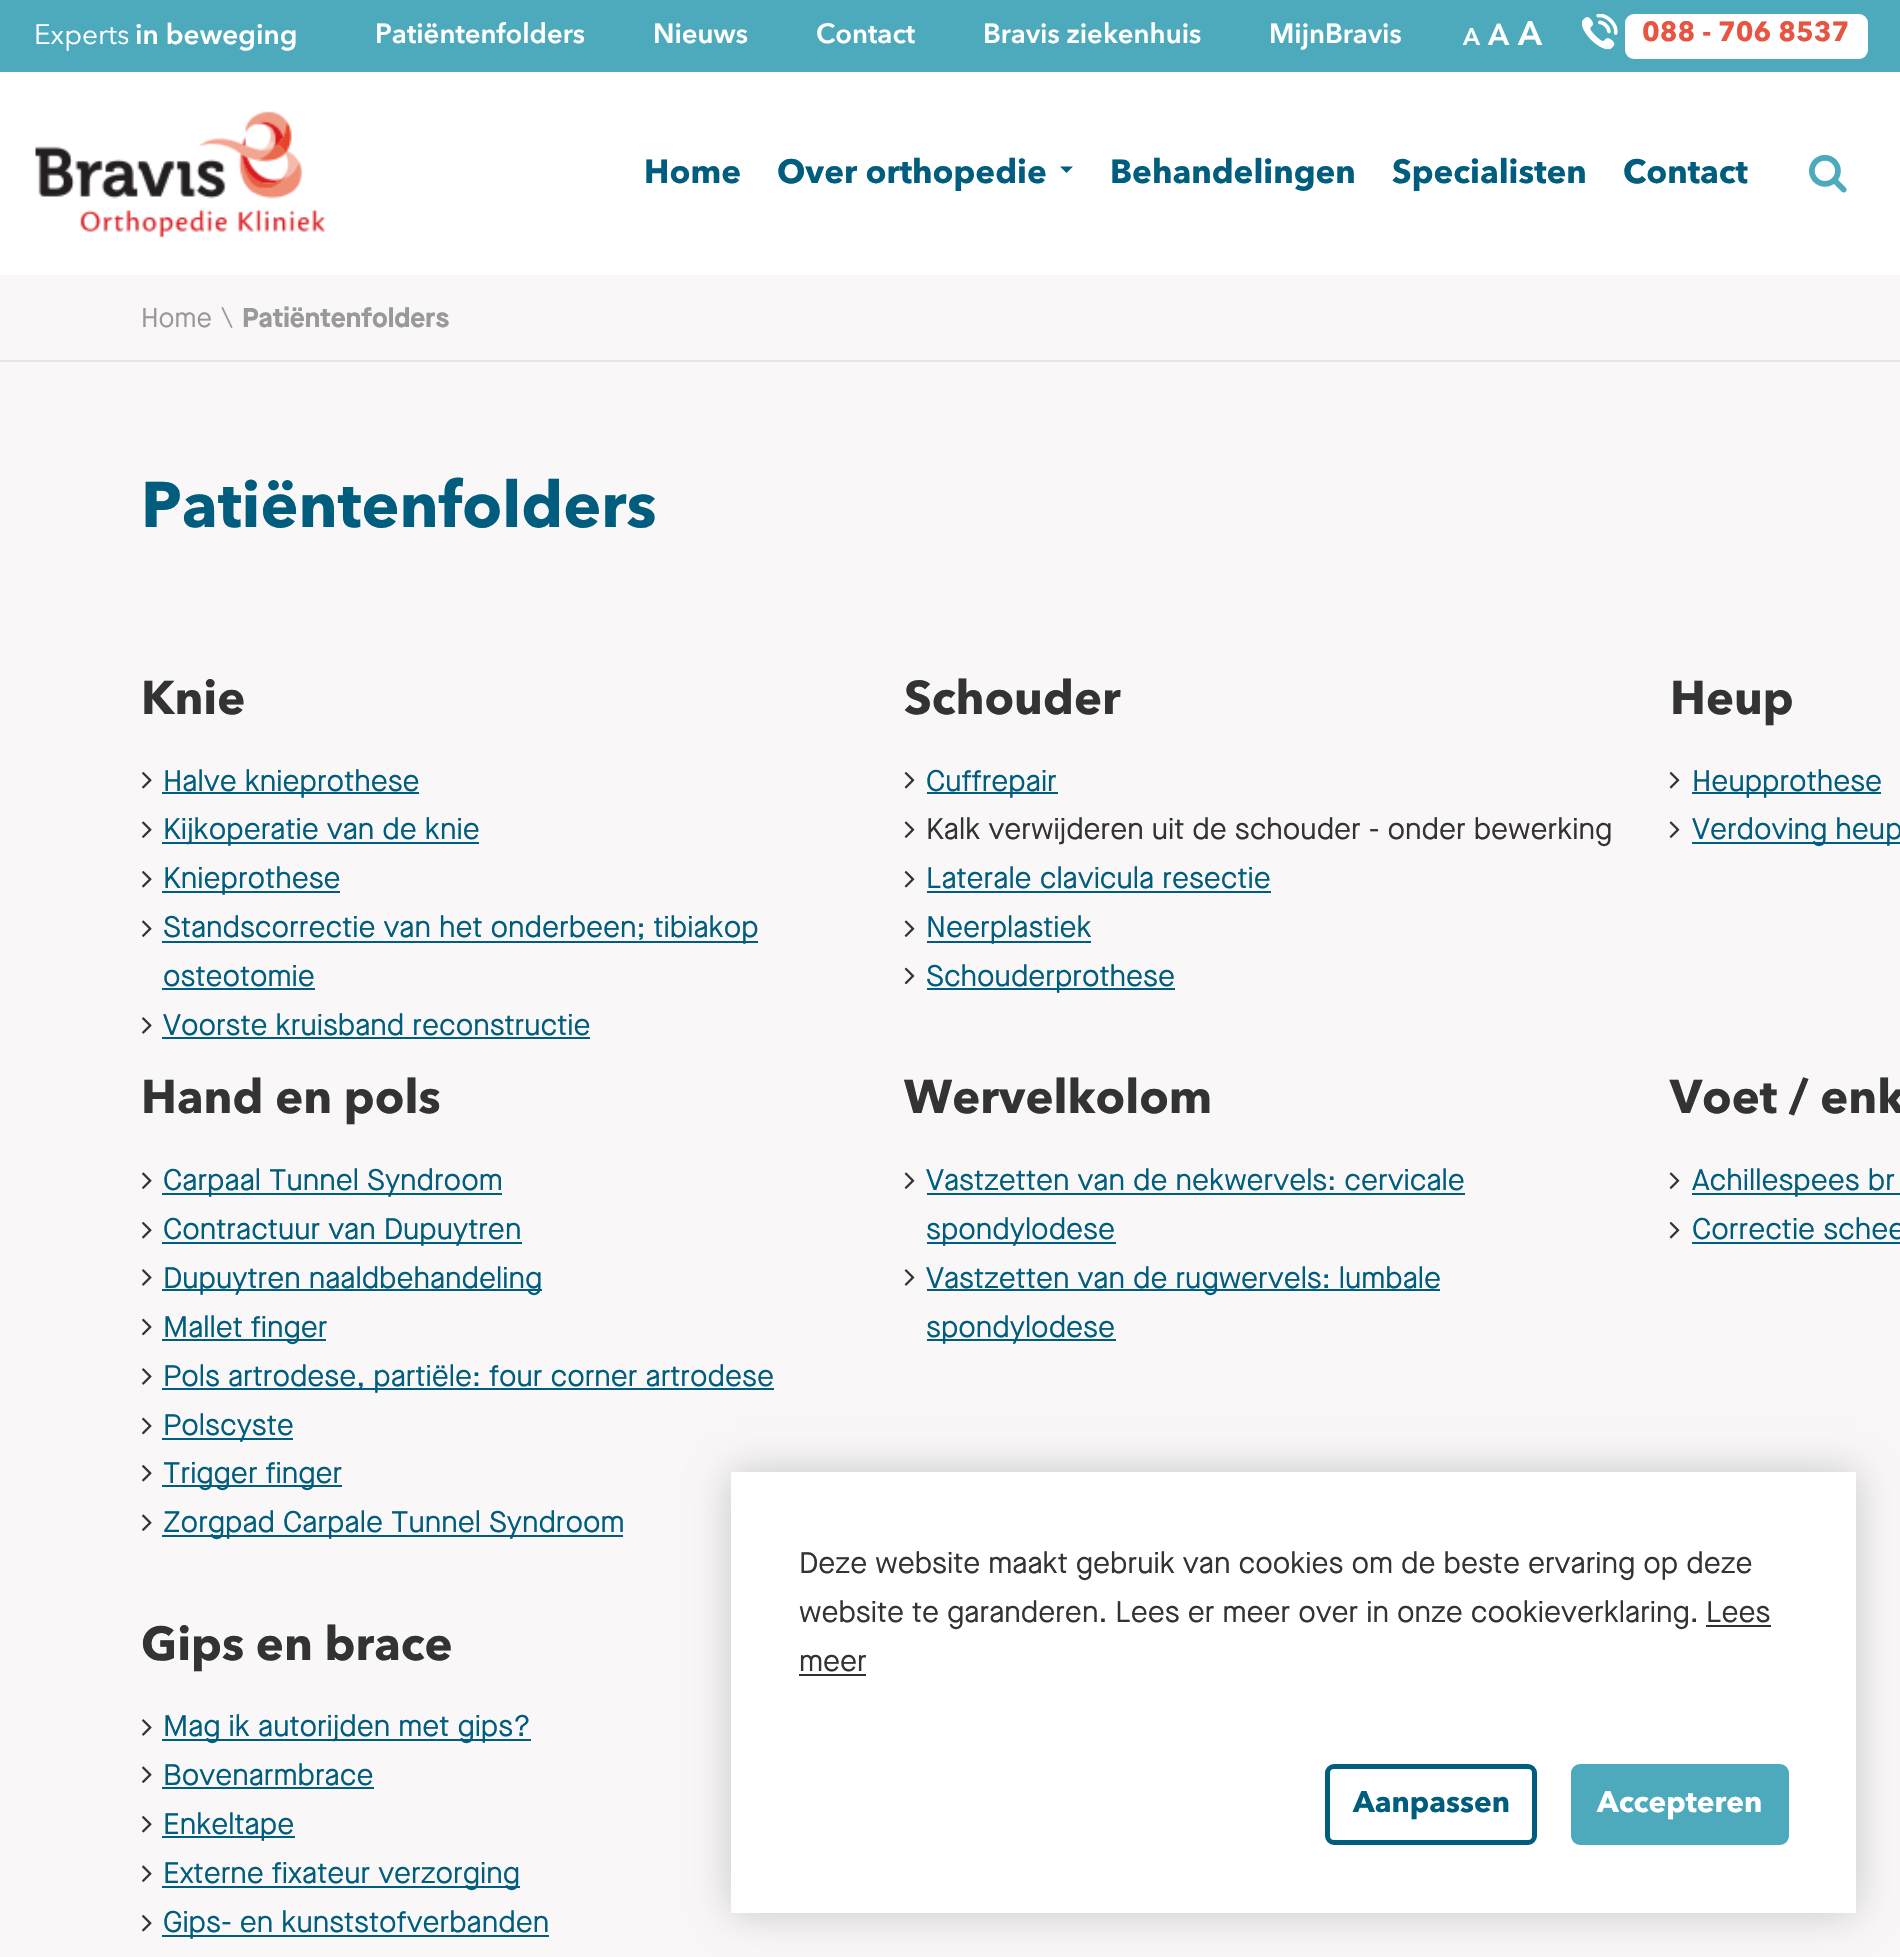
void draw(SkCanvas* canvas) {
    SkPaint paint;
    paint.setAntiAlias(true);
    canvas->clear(0xFFF9F7F7);
    paint.setColor(0xFFFFFFFF);
    canvas->drawRect(SkRect::MakeXYWH(0, 72, 1900, 203), paint);
    paint.setColor(0xFF4DAABC);
    canvas->drawRect(SkRect::MakeXYWH(0, 0, 1900, 72), paint);
    SkFont font1(fontMgr->matchFamilyStyle("Avenir Next", SkFontStyle::Normal()), 28);
    font1.setSubpixel(true);
    paint.setColor(0xFFFFFFFF);
    canvas->drawString("Experts", 34, 44, font1, paint);
    SkFont font2(fontMgr->matchFamilyStyle("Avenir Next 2", SkFontStyle::Normal()), 28);
    font2.setSubpixel(true);
    canvas->drawString("in beweging", 135, 44, font2, paint);
    SkFont font3(fontMgr->matchFamilyStyle("Avenir Next 2", SkFontStyle::Normal()), 27.5f);
    font3.setSubpixel(true);
    canvas->drawString("Patiëntenfolders", 375, 43, font3, paint);
    canvas->drawString("Nieuws", 653, 43, font3, paint);
    canvas->drawString("Contact", 816, 43, font3, paint);
    canvas->drawString("Bravis ziekenhuis", 983, 43, font3, paint);
    canvas->drawString("MijnBravis", 1269, 43, font3, paint);
    SkFont font4(fontMgr->matchFamilyStyle("Avenir Next 2", SkFontStyle::Normal()), 24);
    font4.setSubpixel(true);
    canvas->drawString("A", 1463, 45, font4, paint);
    SkFont font5(fontMgr->matchFamilyStyle("Avenir Next 2", SkFontStyle::Normal()), 30);
    font5.setSubpixel(true);
    canvas->drawString("A", 1488, 45, font5, paint);
    SkFont font6(fontMgr->matchFamilyStyle("Avenir Next 2", SkFontStyle::Normal()), 34);
    font6.setSubpixel(true);
    canvas->drawString("A", 1518, 45, font6, paint);
    canvas->drawImageRect(SkImages::DeferredFromEncodedData(SkData::MakeFromFileName("img1.png")), SkRect::MakeXYWH(1582, 14, 36, 36), SkSamplingOptions());
    canvas->drawRoundRect(SkRect::MakeXYWH(1625, 14, 243, 45), 9, 9, paint);
    SkFont font7(fontMgr->matchFamilyStyle("Avenir Next", SkFontStyle::Bold()), 27.5f);
    font7.setSubpixel(true);
    paint.setColor(0xFFE75542);
    canvas->drawString("088 - 706 8537", 1642, 41, font7, paint);
    canvas->drawImageRect(SkImages::DeferredFromEncodedData(SkData::MakeFromFileName("img2.png")), SkRect::MakeXYWH(35, 111, 290, 127), SkSamplingOptions());
    SkFont font8(fontMgr->matchFamilyStyle("Avenir Next", SkFontStyle::Bold()), 33.25f);
    font8.setSubpixel(true);
    paint.setColor(0xFF005D7D);
    canvas->drawString("Home", 644, 183, font8, paint);
    canvas->drawString("Over orthopedie", 777, 183, font8, paint);
    canvas->drawPath(SkPathBuilder().moveTo(1060, 166.5f).lineTo(1073, 166.5f).lineTo(1066.5f, 173).close().detach(), paint);
    canvas->drawString("Behandelingen", 1110, 183, font8, paint);
    canvas->drawString("Specialisten", 1392, 183, font8, paint);
    canvas->drawString("Contact", 1623, 183, font8, paint);
    canvas->drawImageRect(SkImages::DeferredFromEncodedData(SkData::MakeFromFileName("img3.png")), SkRect::MakeXYWH(1809, 154, 38, 39), SkSamplingOptions());
    paint.setColor(0xFFE7E3DE);
    canvas->drawRect(SkRect::MakeXYWH(0, 360, 1900, 2), paint);
    SkFont font9(fontMgr->matchFamilyStyle("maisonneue", SkFontStyle::Normal()), 27);
    font9.setSubpixel(true);
    paint.setColor(0xFF999999);
    canvas->drawString("Home", 141, 327, font9, paint);
    canvas->drawString("\\", 221, 327, font9, paint);
    SkFont font10(fontMgr->matchFamilyStyle("maisonneue", SkFontStyle::Bold()), 27);
    font10.setSubpixel(true);
    canvas->drawString("Patiëntenfolders", 242, 327, font10, paint);
    SkFont font11(fontMgr->matchFamilyStyle("Avenir Next", SkFontStyle::Bold()), 63.75f);
    font11.setSubpixel(true);
    paint.setColor(0xFF005D7D);
    canvas->drawString("Patiëntenfolders", 141, 527, font11, paint);
    SkFont font12(fontMgr->matchFamilyStyle("Avenir Next", SkFontStyle::Bold()), 47);
    font12.setSubpixel(true);
    paint.setColor(0xFF333333);
    canvas->drawString("Knie", 141, 714, font12, paint);
    canvas->drawString("Schouder", 904, 714, font12, paint);
    canvas->drawString("Heup", 1670, 714, font12, paint);
    canvas->drawImageRect(SkImages::DeferredFromEncodedData(SkData::MakeFromFileName("img4.png")), SkRect::MakeXYWH(142, 772, 10, 17), SkSamplingOptions());
    paint.setColor(0xFF005D7D);
    canvas->drawRect(SkRect::MakeXYWH(162, 792, 257, 2), paint);
    SkFont font13(fontMgr->matchFamilyStyle("maisonneue", SkFontStyle::Normal()), 29.7f);
    font13.setSubpixel(true);
    canvas->drawString("Halve knieprothese", 163, 791, font13, paint);
    canvas->drawImageRect(SkImages::DeferredFromEncodedData(SkData::MakeFromFileName("img5.png")), SkRect::MakeXYWH(142, 821, 10, 17), SkSamplingOptions());
    canvas->drawRect(SkRect::MakeXYWH(162, 842, 317, 2), paint);
    canvas->drawString("Kijkoperatie van de knie", 163, 839, font13, paint);
    canvas->drawImageRect(SkImages::DeferredFromEncodedData(SkData::MakeFromFileName("img4.png")), SkRect::MakeXYWH(142, 871, 10, 17), SkSamplingOptions());
    canvas->drawRect(SkRect::MakeXYWH(162, 891, 178, 2), paint);
    canvas->drawString("Knieprothese", 163, 888, font13, paint);
    canvas->drawImageRect(SkImages::DeferredFromEncodedData(SkData::MakeFromFileName("img5.png")), SkRect::MakeXYWH(142, 920, 10, 17), SkSamplingOptions());
    canvas->drawRect(SkRect::MakeXYWH(162, 941, 596, 2), paint);
    canvas->drawString("Standscorrectie van het onderbeen; tibiakop", 163, 937, font13, paint);
    canvas->drawString("osteotomie", 163, 986, font13, paint);
    canvas->drawRect(SkRect::MakeXYWH(162, 988, 153, 2), paint);
    canvas->drawImageRect(SkImages::DeferredFromEncodedData(SkData::MakeFromFileName("img6.png")), SkRect::MakeXYWH(142, 1017, 10, 17), SkSamplingOptions());
    canvas->drawString("Voorste kruisband reconstructie", 163, 1035, font13, paint);
    canvas->drawRect(SkRect::MakeXYWH(162, 1037, 428, 2), paint);
    canvas->drawImageRect(SkImages::DeferredFromEncodedData(SkData::MakeFromFileName("img7.png")), SkRect::MakeXYWH(904, 772, 11, 17), SkSamplingOptions());
    canvas->drawRect(SkRect::MakeXYWH(927, 792, 131, 2), paint);
    canvas->drawString("Cuffrepair", 926, 791, font13, paint);
    canvas->drawImageRect(SkImages::DeferredFromEncodedData(SkData::MakeFromFileName("img8.png")), SkRect::MakeXYWH(904, 821, 11, 17), SkSamplingOptions());
    paint.setColor(0xFF333333);
    canvas->drawString("Kalk verwijderen uit de schouder - onder bewerking", 926, 839, font13, paint);
    canvas->drawImageRect(SkImages::DeferredFromEncodedData(SkData::MakeFromFileName("img7.png")), SkRect::MakeXYWH(904, 871, 11, 17), SkSamplingOptions());
    paint.setColor(0xFF005D7D);
    canvas->drawString("Laterale clavicula resectie", 926, 888, font13, paint);
    canvas->drawRect(SkRect::MakeXYWH(927, 891, 344, 2), paint);
    canvas->drawImageRect(SkImages::DeferredFromEncodedData(SkData::MakeFromFileName("img8.png")), SkRect::MakeXYWH(904, 920, 11, 17), SkSamplingOptions());
    canvas->drawRect(SkRect::MakeXYWH(927, 941, 164, 2), paint);
    canvas->drawString("Neerplastiek", 926, 937, font13, paint);
    canvas->drawImageRect(SkImages::DeferredFromEncodedData(SkData::MakeFromFileName("img9.png")), SkRect::MakeXYWH(904, 967, 11, 18), SkSamplingOptions());
    canvas->drawRect(SkRect::MakeXYWH(927, 988, 248, 2), paint);
    canvas->drawString("Schouderprothese", 926, 986, font13, paint);
    canvas->drawImageRect(SkImages::DeferredFromEncodedData(SkData::MakeFromFileName("img7.png")), SkRect::MakeXYWH(1669, 772, 11, 17), SkSamplingOptions());
    canvas->drawRect(SkRect::MakeXYWH(1692, 792, 189, 2), paint);
    canvas->drawString("Heupprothese", 1692, 791, font13, paint);
    canvas->drawImageRect(SkImages::DeferredFromEncodedData(SkData::MakeFromFileName("img8.png")), SkRect::MakeXYWH(1669, 821, 11, 17), SkSamplingOptions());
    canvas->drawRect(SkRect::MakeXYWH(1692, 842, 208, 2), paint);
    canvas->drawString("Verdoving heup", 1692, 839, font13, paint);
    paint.setColor(0xFF333333);
    canvas->drawString("Hand en pols", 141, 1113, font12, paint);
    canvas->drawString("Wervelkolom", 904, 1113, font12, paint);
    canvas->drawString("Voet / enk", 1670, 1113, font12, paint);
    canvas->drawImageRect(SkImages::DeferredFromEncodedData(SkData::MakeFromFileName("img5.png")), SkRect::MakeXYWH(142, 1172, 10, 17), SkSamplingOptions());
    paint.setColor(0xFF005D7D);
    canvas->drawRect(SkRect::MakeXYWH(162, 1193, 340, 2), paint);
    canvas->drawString("Carpaal Tunnel Syndroom", 163, 1190, font13, paint);
    canvas->drawImageRect(SkImages::DeferredFromEncodedData(SkData::MakeFromFileName("img4.png")), SkRect::MakeXYWH(142, 1222, 10, 17), SkSamplingOptions());
    canvas->drawRect(SkRect::MakeXYWH(162, 1242, 360, 2), paint);
    canvas->drawString("Contractuur van Dupuytren", 163, 1239, font13, paint);
    canvas->drawImageRect(SkImages::DeferredFromEncodedData(SkData::MakeFromFileName("img6.png")), SkRect::MakeXYWH(142, 1269, 10, 17), SkSamplingOptions());
    canvas->drawRect(SkRect::MakeXYWH(162, 1289, 380, 2), paint);
    canvas->drawString("Dupuytren naaldbehandeling", 163, 1288, font13, paint);
    canvas->drawImageRect(SkImages::DeferredFromEncodedData(SkData::MakeFromFileName("img10.png")), SkRect::MakeXYWH(142, 1318, 10, 18), SkSamplingOptions());
    canvas->drawRect(SkRect::MakeXYWH(162, 1339, 164, 2), paint);
    canvas->drawString("Mallet finger", 163, 1337, font13, paint);
    canvas->drawImageRect(SkImages::DeferredFromEncodedData(SkData::MakeFromFileName("img6.png")), SkRect::MakeXYWH(142, 1368, 10, 17), SkSamplingOptions());
    canvas->drawRect(SkRect::MakeXYWH(162, 1388, 612, 2), paint);
    canvas->drawString("Pols artrodese, partiële: four corner artrodese", 163, 1386, font13, paint);
    canvas->drawImageRect(SkImages::DeferredFromEncodedData(SkData::MakeFromFileName("img10.png")), SkRect::MakeXYWH(142, 1417, 10, 18), SkSamplingOptions());
    canvas->drawRect(SkRect::MakeXYWH(162, 1438, 131, 2), paint);
    canvas->drawString("Polscyste", 163, 1435, font13, paint);
    canvas->drawImageRect(SkImages::DeferredFromEncodedData(SkData::MakeFromFileName("img4.png")), SkRect::MakeXYWH(142, 1465, 10, 17), SkSamplingOptions());
    canvas->drawRect(SkRect::MakeXYWH(162, 1485, 180, 2), paint);
    canvas->drawString("Trigger finger", 163, 1483, font13, paint);
    canvas->drawImageRect(SkImages::DeferredFromEncodedData(SkData::MakeFromFileName("img5.png")), SkRect::MakeXYWH(142, 1514, 10, 17), SkSamplingOptions());
    canvas->drawRect(SkRect::MakeXYWH(162, 1535, 461, 2), paint);
    canvas->drawString("Zorgpad Carpale Tunnel Syndroom", 163, 1532, font13, paint);
    canvas->drawImageRect(SkImages::DeferredFromEncodedData(SkData::MakeFromFileName("img8.png")), SkRect::MakeXYWH(904, 1172, 11, 17), SkSamplingOptions());
    canvas->drawString("Vastzetten van de nekwervels: cervicale", 926, 1190, font13, paint);
    canvas->drawRect(SkRect::MakeXYWH(927, 1193, 538, 2), paint);
    canvas->drawRect(SkRect::MakeXYWH(927, 1242, 189, 2), paint);
    canvas->drawString("spondylodese", 926, 1239, font13, paint);
    canvas->drawImageRect(SkImages::DeferredFromEncodedData(SkData::MakeFromFileName("img11.png")), SkRect::MakeXYWH(904, 1269, 11, 17), SkSamplingOptions());
    canvas->drawRect(SkRect::MakeXYWH(927, 1289, 513, 2), paint);
    canvas->drawString("Vastzetten van de rugwervels: lumbale", 926, 1288, font13, paint);
    canvas->drawRect(SkRect::MakeXYWH(927, 1339, 189, 2), paint);
    canvas->drawString("spondylodese", 926, 1337, font13, paint);
    canvas->drawImageRect(SkImages::DeferredFromEncodedData(SkData::MakeFromFileName("img8.png")), SkRect::MakeXYWH(1669, 1172, 11, 17), SkSamplingOptions());
    canvas->drawRect(SkRect::MakeXYWH(1692, 1193, 208, 2), paint);
    canvas->drawString("Achillespees br", 1692, 1190, font13, paint);
    canvas->drawImageRect(SkImages::DeferredFromEncodedData(SkData::MakeFromFileName("img7.png")), SkRect::MakeXYWH(1669, 1222, 11, 17), SkSamplingOptions());
    canvas->drawString("Correctie schee", 1692, 1239, font13, paint);
    canvas->drawRect(SkRect::MakeXYWH(1692, 1242, 208, 2), paint);
    paint.setColor(0xFF333333);
    canvas->drawString("Gips en brace", 141, 1660, font12, paint);
    canvas->drawImageRect(SkImages::DeferredFromEncodedData(SkData::MakeFromFileName("img6.png")), SkRect::MakeXYWH(142, 1719, 10, 17), SkSamplingOptions());
    paint.setColor(0xFF005D7D);
    canvas->drawRect(SkRect::MakeXYWH(162, 1739, 369, 2), paint);
    canvas->drawString("Mag ik autorijden met gips?", 163, 1736, font13, paint);
    canvas->drawImageRect(SkImages::DeferredFromEncodedData(SkData::MakeFromFileName("img5.png")), SkRect::MakeXYWH(142, 1766, 10, 17), SkSamplingOptions());
    canvas->drawString("Bovenarmbrace", 163, 1785, font13, paint);
    canvas->drawRect(SkRect::MakeXYWH(162, 1787, 212, 2), paint);
    canvas->drawImageRect(SkImages::DeferredFromEncodedData(SkData::MakeFromFileName("img4.png")), SkRect::MakeXYWH(142, 1816, 10, 17), SkSamplingOptions());
    canvas->drawRect(SkRect::MakeXYWH(162, 1836, 133, 2), paint);
    canvas->drawString("Enkeltape", 163, 1834, font13, paint);
    canvas->drawImageRect(SkImages::DeferredFromEncodedData(SkData::MakeFromFileName("img5.png")), SkRect::MakeXYWH(142, 1865, 10, 17), SkSamplingOptions());
    canvas->drawRect(SkRect::MakeXYWH(162, 1886, 358, 2), paint);
    canvas->drawString("Externe fixateur verzorging", 163, 1883, font13, paint);
    canvas->drawImageRect(SkImages::DeferredFromEncodedData(SkData::MakeFromFileName("img4.png")), SkRect::MakeXYWH(142, 1915, 10, 17), SkSamplingOptions());
    canvas->drawRect(SkRect::MakeXYWH(162, 1935, 387, 2), paint);
    canvas->drawString("Gips- en kunststofverbanden", 163, 1932, font13, paint);
    paint.setColor(0x33000000);
    paint.setMaskFilter(SkMaskFilter::MakeBlur(kNormal_SkBlurStyle, 19.5f));
    canvas->drawRect(SkRect::MakeXYWH(731, 1472, 1125, 441), paint);
    paint.setMaskFilter(nullptr);
    paint.setColor(0xFFFFFFFF);
    canvas->drawRect(SkRect::MakeXYWH(731, 1472, 1125, 441), paint);
    paint.setColor(0xFF333333);
    canvas->drawString("Deze website maakt gebruik van cookies om de beste ervaring op deze", 799, 1573, font13, paint);
    canvas->drawString("website te garanderen. Lees er meer over in onze cookieverklaring.", 799, 1622, font13, paint);
    canvas->drawString("Lees", 1706, 1622, font13, paint);
    paint.setColor(0xFF303030);
    canvas->drawRect(SkRect::MakeXYWH(1706, 1625, 65, 2), paint);
    paint.setColor(0xFF333333);
    canvas->drawString("meer", 799, 1671, font13, paint);
    paint.setColor(0xFF303030);
    canvas->drawRect(SkRect::MakeXYWH(799, 1674, 67, 2), paint);
    paint.setStyle(SkPaint::kStroke_Style);
    paint.setStrokeWidth(5);
    paint.setColor(0xFF005D7D);
    canvas->drawRoundRect(SkRect::MakeXYWH(1327.5f, 1766.5f, 207, 76), 6.5f, 6.5f, paint);
    SkFont font14(fontMgr->matchFamilyStyle("Avenir Next", SkFontStyle::Bold()), 29.7f);
    font14.setSubpixel(true);
    paint.setStyle(SkPaint::kFill_Style);
    canvas->drawString("Aanpassen", 1353, 1812, font14, paint);
    paint.setColor(0xFF4DAABC);
    canvas->drawRoundRect(SkRect::MakeXYWH(1573.5f, 1766.5f, 213, 76), 6.5f, 6.5f, paint);
    paint.setStyle(SkPaint::kStroke_Style);
    canvas->drawRoundRect(SkRect::MakeXYWH(1573.5f, 1766.5f, 213, 76), 6.5f, 6.5f, paint);
    paint.setStyle(SkPaint::kFill_Style);
    paint.setColor(0xFFFFFFFF);
    canvas->drawString("Accepteren", 1597, 1812, font14, paint);
}
